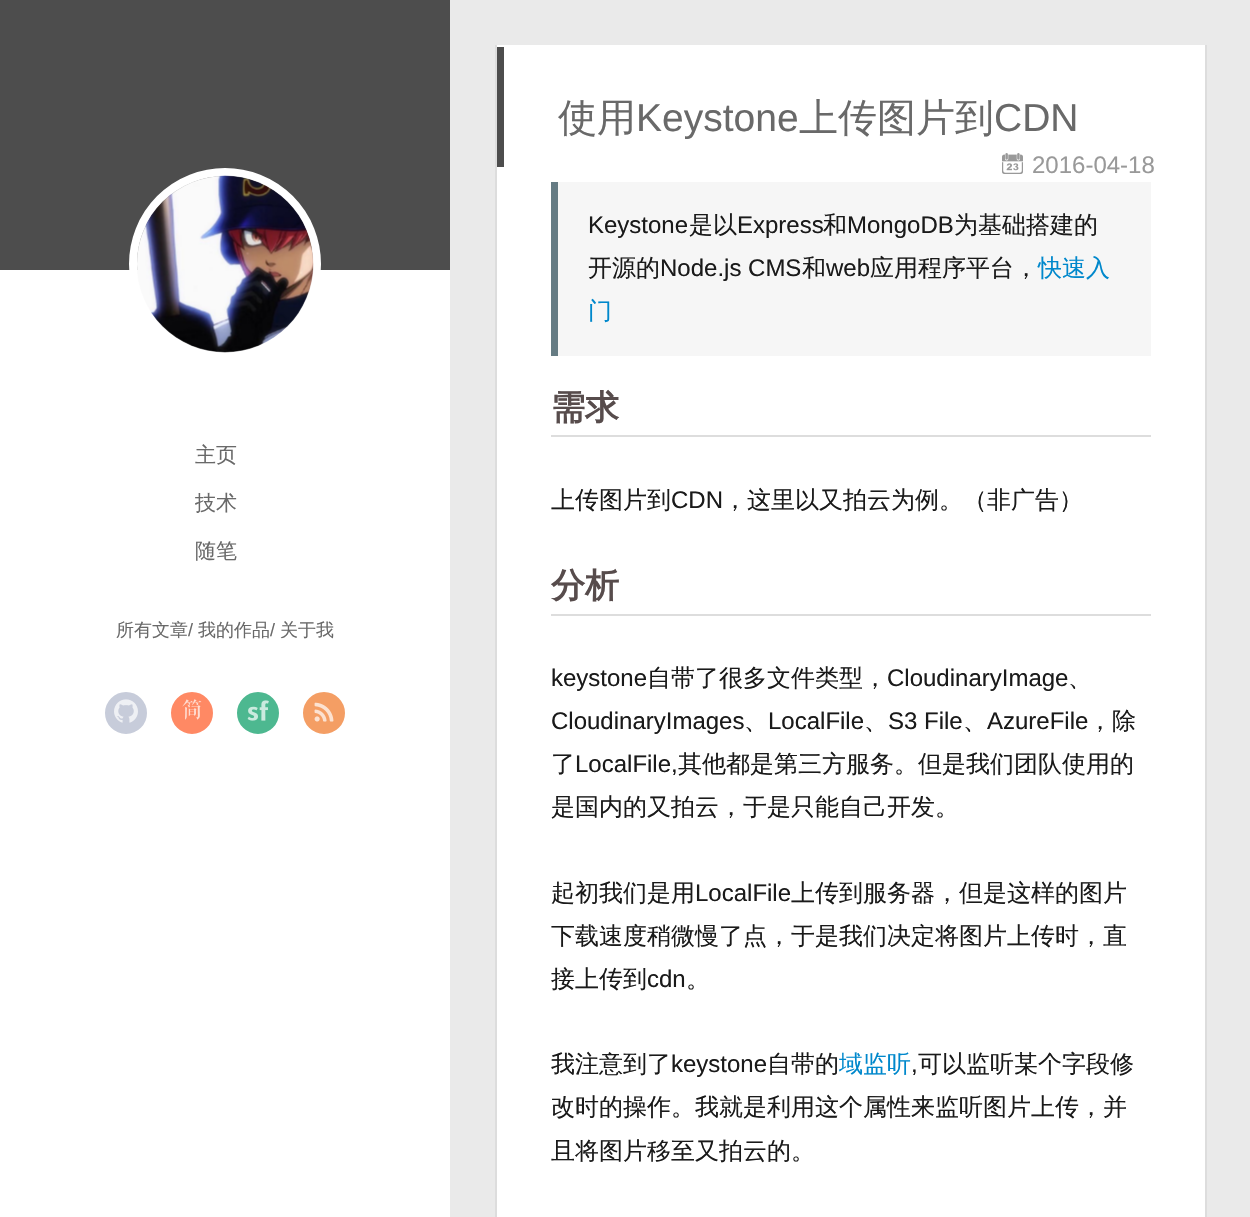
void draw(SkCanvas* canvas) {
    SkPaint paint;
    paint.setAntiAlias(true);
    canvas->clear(0xFFEAEAEA);
    paint.setColor(0xFFFFFFFF);
    canvas->drawRect(SkRect::MakeXYWH(0, 270, 450, 947), paint);
    paint.setColor(0xFF4D4D4D);
    canvas->drawRect(SkRect::MakeXYWH(0, 0, 450, 270), paint);
    paint.setStyle(SkPaint::kStroke_Style);
    paint.setStrokeWidth(8);
    paint.setColor(0xFFFFFFFF);
    canvas->drawCircle(225, 264, 92, paint);
    canvas->drawImageRect(SkImages::DeferredFromEncodedData(SkData::MakeFromFileName("img1.png")), SkRect::MakeXYWH(137, 175, 177, 178), SkSamplingOptions());
    SkFont font1(fontMgr->matchFamilyStyle("WenQuanYi Zen Hei", SkFontStyle(500, SkFontStyle::kNormal_Width, SkFontStyle::kUpright_Slant)), 21);
    font1.setSubpixel(true);
    paint.setStyle(SkPaint::kFill_Style);
    paint.setColor(0xFF696969);
    canvas->drawString("主页", 195, 462, font1, paint);
    canvas->drawString("技术", 195, 510, font1, paint);
    canvas->drawString("随笔", 195, 558, font1, paint);
    SkFont font2(fontMgr->matchFamilyStyle("WenQuanYi Zen Hei", SkFontStyle(500, SkFontStyle::kNormal_Width, SkFontStyle::kUpright_Slant)), 18);
    font2.setSubpixel(true);
    canvas->drawString("所有文章", 116, 636, font2, paint);
    SkFont font3(fontMgr->matchFamilyStyle("Liberation Sans", SkFontStyle::Normal()), 18);
    font3.setSubpixel(true);
    canvas->drawString("/", 188, 636, font3, paint);
    canvas->drawString("我的作品", 198, 636, font2, paint);
    canvas->drawString("/", 270, 636, font3, paint);
    canvas->drawString("关于我", 280, 636, font2, paint);
    paint.setColor(0xFFC7CCDA);
    canvas->drawCircle(126, 713, 20, paint);
    paint.setStyle(SkPaint::kStroke_Style);
    paint.setStrokeWidth(2);
    canvas->drawCircle(126, 713, 20, paint);
    canvas->drawImageRect(SkImages::DeferredFromEncodedData(SkData::MakeFromFileName("img2.png")), SkRect::MakeXYWH(114, 699, 24, 24), SkSamplingOptions());
    paint.setStyle(SkPaint::kFill_Style);
    paint.setColor(0xFFFF8964);
    canvas->drawCircle(192, 713, 20, paint);
    paint.setStyle(SkPaint::kStroke_Style);
    canvas->drawCircle(192, 713, 20, paint);
    canvas->drawImageRect(SkImages::DeferredFromEncodedData(SkData::MakeFromFileName("img3.png")), SkRect::MakeXYWH(182, 699, 20, 21), SkSamplingOptions());
    paint.setStyle(SkPaint::kFill_Style);
    paint.setColor(0xFF4DB890);
    canvas->drawCircle(258, 713, 20, paint);
    paint.setStyle(SkPaint::kStroke_Style);
    canvas->drawCircle(258, 713, 20, paint);
    canvas->drawImageRect(SkImages::DeferredFromEncodedData(SkData::MakeFromFileName("img4.png")), SkRect::MakeXYWH(247, 700, 22, 21), SkSamplingOptions());
    paint.setStyle(SkPaint::kFill_Style);
    paint.setColor(0xFFF49E64);
    canvas->drawCircle(324, 713, 20, paint);
    paint.setStyle(SkPaint::kStroke_Style);
    canvas->drawCircle(324, 713, 20, paint);
    canvas->drawImageRect(SkImages::DeferredFromEncodedData(SkData::MakeFromFileName("img5.png")), SkRect::MakeXYWH(314, 702, 20, 20), SkSamplingOptions());
    paint.setStyle(SkPaint::kFill_Style);
    paint.setColor(0xFFFFFFFF);
    canvas->drawRect(SkRect::MakeXYWH(497, 45, 708, 1172), paint);
    paint.setColor(0xFFDDDDDD);
    canvas->drawRect(SkRect::MakeXYWH(1205, 45, 2, 1172), paint);
    canvas->drawRect(SkRect::MakeXYWH(495, 45, 2, 1172), paint);
    paint.setColor(0xFF4D4D4D);
    canvas->drawRect(SkRect::MakeXYWH(497, 47, 7, 120), paint);
    SkFont font4(fontMgr->matchFamilyStyle("WenQuanYi Zen Hei", SkFontStyle(500, SkFontStyle::kNormal_Width, SkFontStyle::kUpright_Slant)), 39);
    font4.setSubpixel(true);
    paint.setColor(0xFF696969);
    canvas->drawString("使用", 558, 131, font4, paint);
    SkFont font5(fontMgr->matchFamilyStyle("Liberation Sans", SkFontStyle::Normal()), 39);
    font5.setSubpixel(true);
    canvas->drawString("Keystone", 636, 131, font5, paint);
    canvas->drawString("上传图片到", 799, 131, font4, paint);
    canvas->drawString("CDN", 994, 131, font5, paint);
    canvas->drawImageRect(SkImages::DeferredFromEncodedData(SkData::MakeFromFileName("img6.png")), SkRect::MakeXYWH(1002, 153, 21, 21), SkSamplingOptions());
    SkFont font6(fontMgr->matchFamilyStyle("Liberation Sans", SkFontStyle::Normal()), 24);
    font6.setSubpixel(true);
    paint.setColor(0xFF999999);
    canvas->drawString("2016-04-18", 1032, 173, font6, paint);
    paint.setColor(0xFFF6F6F6);
    canvas->drawRect(SkRect::MakeXYWH(558, 182, 593, 174), paint);
    paint.setColor(0xFF657B83);
    canvas->drawRect(SkRect::MakeXYWH(551, 182, 7, 174), paint);
    paint.setColor(0xFF1A1A1A);
    canvas->drawString("Keystone", 588, 233, font6, paint);
    SkFont font7(fontMgr->matchFamilyStyle("WenQuanYi Zen Hei", SkFontStyle(500, SkFontStyle::kNormal_Width, SkFontStyle::kUpright_Slant)), 24);
    font7.setSubpixel(true);
    canvas->drawString("是以", 689, 233, font7, paint);
    canvas->drawString("Express", 737, 233, font6, paint);
    canvas->drawString("和", 823, 233, font7, paint);
    canvas->drawString("MongoDB", 847, 233, font6, paint);
    canvas->drawString("为基础搭建的", 954, 233, font7, paint);
    canvas->drawString("开源的", 588, 276, font7, paint);
    canvas->drawString("Node.js CMS", 660, 276, font6, paint);
    canvas->drawString("和", 802, 276, font7, paint);
    canvas->drawString("web", 826, 276, font6, paint);
    canvas->drawString("应用程序平台，", 870, 276, font7, paint);
    paint.setColor(0xFF0088CC);
    canvas->drawString("快速入", 1038, 276, font7, paint);
    canvas->drawString("门", 588, 319, font7, paint);
    paint.setColor(0xFFDDDDDD);
    canvas->drawRect(SkRect::MakeXYWH(551, 435, 600, 2), paint);
    SkFont font8(fontMgr->matchFamilyStyle("WenQuanYi Zen Hei", SkFontStyle::Bold()), 34);
    font8.setSubpixel(true);
    paint.setColor(0xFF574C4C);
    canvas->drawString("需求", 551, 419, font8, paint);
    paint.setColor(0xFF1A1A1A);
    canvas->drawString("上传图片到", 551, 508, font7, paint);
    canvas->drawString("CDN", 671, 508, font6, paint);
    canvas->drawString("，这里以又拍云为例。（非广告）", 723, 508, font7, paint);
    paint.setColor(0xFFDDDDDD);
    canvas->drawRect(SkRect::MakeXYWH(551, 614, 600, 2), paint);
    paint.setColor(0xFF574C4C);
    canvas->drawString("分析", 551, 597, font8, paint);
    paint.setColor(0xFF1A1A1A);
    canvas->drawString("keystone", 551, 686, font6, paint);
    canvas->drawString("自带了很多文件类型，", 647, 686, font7, paint);
    canvas->drawString("CloudinaryImage", 887, 686, font6, paint);
    canvas->drawString("、", 1068, 686, font7, paint);
    canvas->drawString("CloudinaryImages", 551, 729, font6, paint);
    canvas->drawString("、", 744, 729, font7, paint);
    canvas->drawString("LocalFile", 768, 729, font6, paint);
    canvas->drawString("、", 864, 729, font7, paint);
    canvas->drawString("S3 File", 888, 729, font6, paint);
    canvas->drawString("、", 963, 729, font7, paint);
    canvas->drawString("AzureFile", 987, 729, font6, paint);
    canvas->drawString("，除", 1088, 729, font7, paint);
    canvas->drawString("了", 551, 772, font7, paint);
    canvas->drawString("LocalFile,", 575, 772, font6, paint);
    canvas->drawString("其他都是第三方服务。但是我们团队使用的", 678, 772, font7, paint);
    canvas->drawString("是国内的又拍云，于是只能自己开发。", 551, 815, font7, paint);
    canvas->drawString("起初我们是用", 551, 901, font7, paint);
    canvas->drawString("LocalFile", 695, 901, font6, paint);
    canvas->drawString("上传到服务器，但是这样的图片", 791, 901, font7, paint);
    canvas->drawString("下载速度稍微慢了点，于是我们决定将图片上传时，直", 551, 944, font7, paint);
    canvas->drawString("接上传到", 551, 987, font7, paint);
    canvas->drawString("cdn", 647, 987, font6, paint);
    canvas->drawString("。", 686, 987, font7, paint);
    canvas->drawString("我注意到了", 551, 1072, font7, paint);
    canvas->drawString("keystone", 671, 1072, font6, paint);
    canvas->drawString("自带的", 767, 1072, font7, paint);
    paint.setColor(0xFF0088CC);
    canvas->drawString("域监听", 839, 1072, font7, paint);
    paint.setColor(0xFF1A1A1A);
    canvas->drawString(",", 911, 1072, font6, paint);
    canvas->drawString("可以监听某个字段修", 918, 1072, font7, paint);
    canvas->drawString("改时的操作。我就是利用这个属性来监听图片上传，并", 551, 1115, font7, paint);
    canvas->drawString("且将图片移至又拍云的。", 551, 1159, font7, paint);
}
